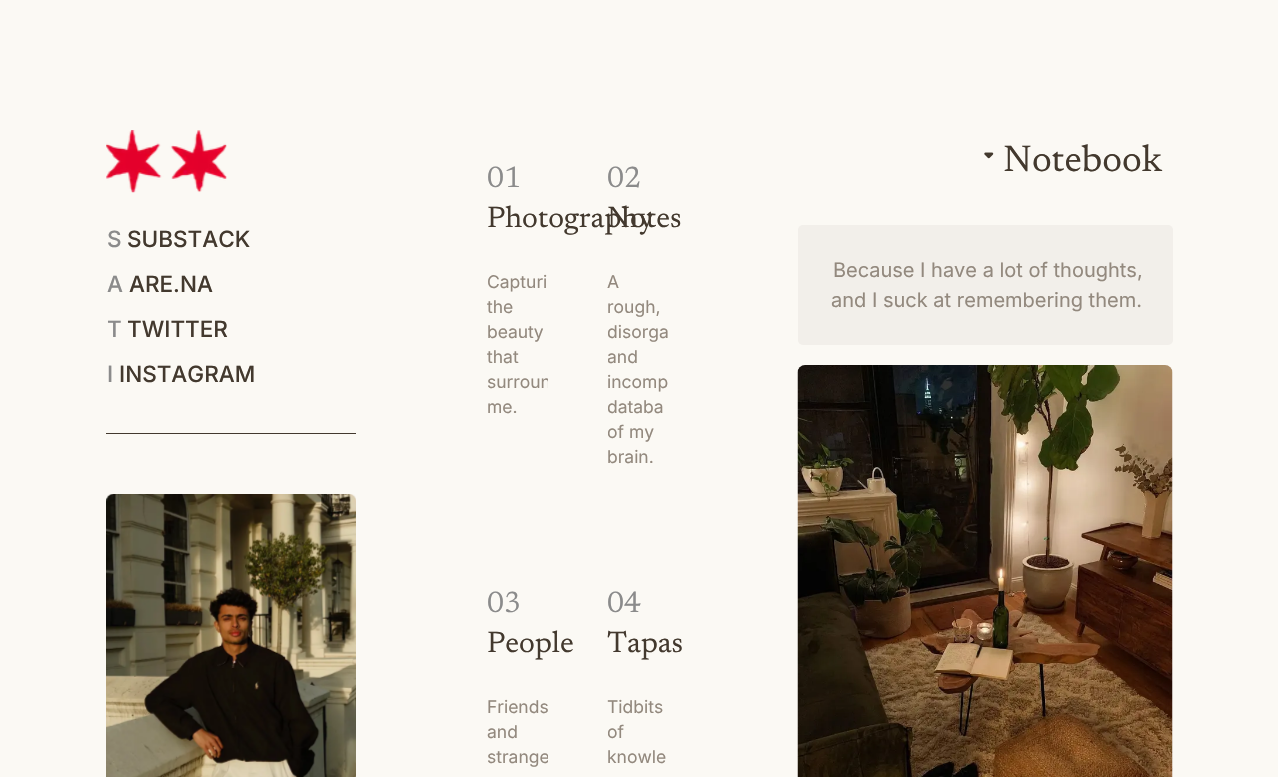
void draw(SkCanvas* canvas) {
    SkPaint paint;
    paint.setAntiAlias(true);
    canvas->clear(0xFFFBF9F4);
    canvas->drawImageRect(SkImages::DeferredFromEncodedData(SkData::MakeFromFileName("img1.png")), SkRect::MakeXYWH(106, 130, 121, 63), SkSamplingOptions());
    SkFont font1(fontMgr->matchFamilyStyle("Inter", SkFontStyle(500, SkFontStyle::kNormal_Width, SkFontStyle::kUpright_Slant)), 22.5f);
    font1.setSubpixel(true);
    paint.setColor(0xFF8B8B8B);
    canvas->drawString("S", 107, 247, font1, paint);
    paint.setColor(0xFF43392E);
    canvas->drawString("SUBSTACK", 127, 247, font1, paint);
    paint.setColor(0xFF8B8B8B);
    canvas->drawString("A", 107, 292, font1, paint);
    paint.setColor(0xFF43392E);
    canvas->drawString("ARE.NA", 129, 292, font1, paint);
    paint.setColor(0xFF8B8B8B);
    canvas->drawString("T", 107, 337, font1, paint);
    paint.setColor(0xFF43392E);
    canvas->drawString("TWITTER", 127, 337, font1, paint);
    paint.setColor(0xFF8B8B8B);
    canvas->drawString("I", 107, 382, font1, paint);
    paint.setColor(0xFF43392E);
    canvas->drawString("INSTAGRAM", 119, 382, font1, paint);
    canvas->drawRect(SkRect::MakeXYWH(106, 433, 250, 1), paint);
    canvas->drawImageRect(SkImages::DeferredFromEncodedData(SkData::MakeFromFileName("img2.png")), SkRect::MakeXYWH(106, 494, 250, 283), SkSamplingOptions());
    SkFont font2(fontMgr->matchFamilyStyle("Newsreader", SkFontStyle::Normal()), 30);
    font2.setSubpixel(true);
    paint.setColor(0xFF8B8B8B);
    canvas->drawString("01", 487, 187, font2, paint);
    paint.setColor(0xFF43392E);
    canvas->drawString("Photography", 487, 227, font2, paint);
    SkFont font3(fontMgr->matchFamilyStyle("Inter", SkFontStyle::Normal()), 17.5f);
    font3.setSubpixel(true);
    paint.setColor(0xFF93897E);
    canvas->drawString("Capturi", 487, 288, font3, paint);
    canvas->drawString("the", 487, 313, font3, paint);
    canvas->drawString("beauty", 487, 338, font3, paint);
    canvas->drawString("that", 487, 363, font3, paint);
    canvas->save();
    canvas->clipRect(SkRect::MakeXYWH(486, 270, 62, 150));
    canvas->drawString("surroun", 487, 388, font3, paint);
    canvas->restore();
    canvas->drawString("me.", 487, 413, font3, paint);
    paint.setColor(0xFF8B8B8B);
    canvas->drawString("02", 607, 187, font2, paint);
    paint.setColor(0xFF43392E);
    canvas->drawString("Notes", 607, 227, font2, paint);
    paint.setColor(0xFF93897E);
    canvas->drawString("A", 607, 288, font3, paint);
    canvas->drawString("rough,", 607, 313, font3, paint);
    canvas->save();
    canvas->clipRect(SkRect::MakeXYWH(608, 270, 60, 200));
    canvas->drawString("disorga", 607, 338, font3, paint);
    canvas->drawString("and", 607, 363, font3, paint);
    canvas->restore();
    canvas->drawString("incomp", 607, 388, font3, paint);
    canvas->save();
    canvas->clipRect(SkRect::MakeXYWH(608, 270, 60, 200));
    canvas->drawString("databa", 607, 413, font3, paint);
    canvas->drawString("of my", 607, 438, font3, paint);
    canvas->restore();
    canvas->drawString("brain.", 607, 463, font3, paint);
    paint.setColor(0xFF8B8B8B);
    canvas->drawString("03", 487, 612, font2, paint);
    paint.setColor(0xFF43392E);
    canvas->drawString("People", 487, 652, font2, paint);
    paint.setColor(0xFF93897E);
    canvas->drawString("Friends", 487, 713, font3, paint);
    canvas->drawString("and", 487, 738, font3, paint);
    canvas->save();
    canvas->clipRect(SkRect::MakeXYWH(486, 695, 62, 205));
    canvas->drawString("strange", 487, 763, font3, paint);
    canvas->restore();
    paint.setColor(0xFF8B8B8B);
    canvas->drawString("04", 607, 612, font2, paint);
    paint.setColor(0xFF43392E);
    canvas->drawString("Tapas", 607, 652, font2, paint);
    paint.setColor(0xFF93897E);
    canvas->drawString("Tidbits", 607, 713, font3, paint);
    canvas->save();
    canvas->clipRect(SkRect::MakeXYWH(608, 695, 60, 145));
    canvas->drawString("of", 607, 738, font3, paint);
    canvas->restore();
    canvas->drawString("knowle", 607, 763, font3, paint);
    canvas->drawImageRect(SkImages::DeferredFromEncodedData(SkData::MakeFromFileName("img3.png")), SkRect::MakeXYWH(984, 152, 10, 7), SkSamplingOptions());
    SkFont font4(fontMgr->matchFamilyStyle("Newsreader", SkFontStyle::Normal()), 37.5f);
    font4.setSubpixel(true);
    paint.setColor(0xFF43392E);
    canvas->drawString("Notebook", 1003, 171, font4, paint);
    paint.setColor(0xFFF2EFEA);
    canvas->drawRoundRect(SkRect::MakeXYWH(798, 225, 375, 120), 5, 5, paint);
    SkFont font5(fontMgr->matchFamilyStyle("Inter", SkFontStyle::Normal()), 20);
    font5.setSubpixel(true);
    paint.setColor(0xFF93897E);
    canvas->drawString("Because I have a lot of thoughts,", 833, 277, font5, paint);
    canvas->drawString("and I suck at remembering them.", 831, 307, font5, paint);
    canvas->drawImageRect(SkImages::DeferredFromEncodedData(SkData::MakeFromFileName("img4.png")), SkRect::MakeXYWH(797, 365, 376, 412), SkSamplingOptions());
}
